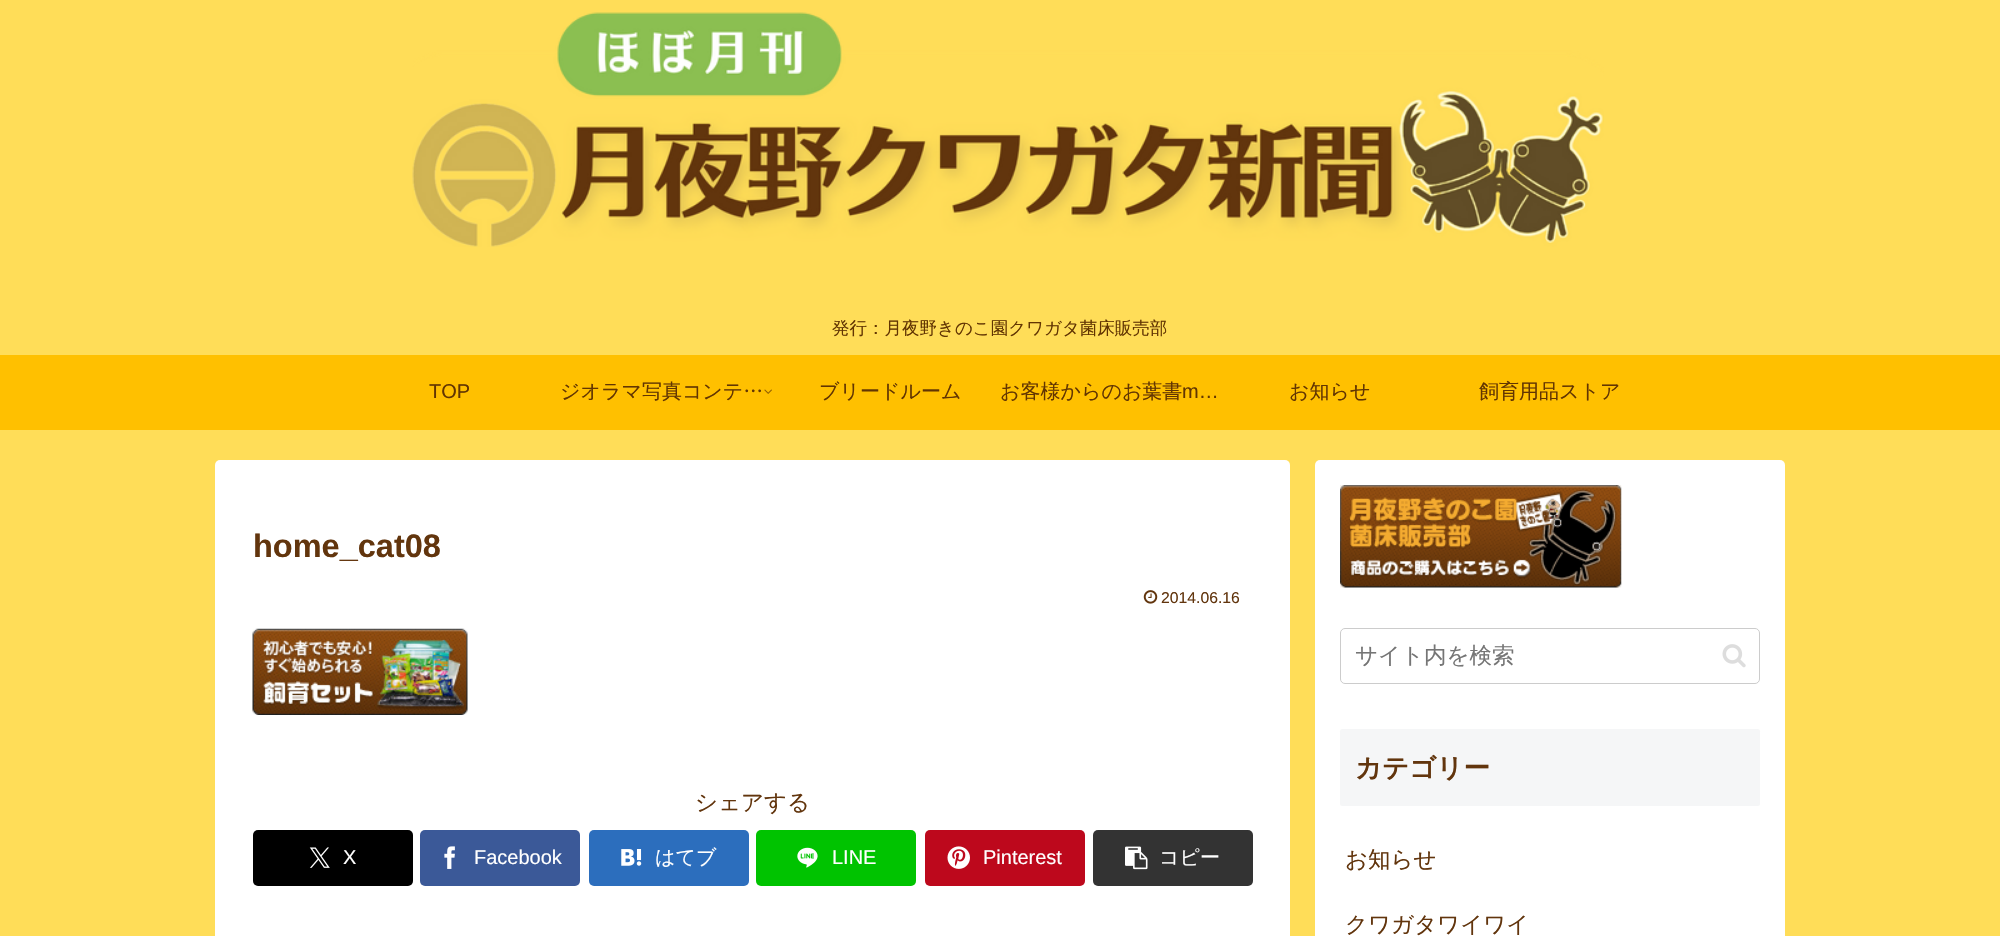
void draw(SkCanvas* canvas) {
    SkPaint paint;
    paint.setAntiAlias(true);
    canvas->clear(0xFFFFDD58);
    canvas->drawImageRect(SkImages::DeferredFromEncodedData(SkData::MakeFromFileName("img1.png")), SkRect::MakeXYWH(412, 12, 1192, 235), SkSamplingOptions());
    SkFont font1(fontMgr->matchFamilyStyle("WenQuanYi Zen Hei", SkFontStyle(500, SkFontStyle::kNormal_Width, SkFontStyle::kUpright_Slant)), 17.5f);
    font1.setSubpixel(true);
    paint.setColor(0xFF623502);
    canvas->drawString("発行：月夜野きのこ園クワガタ菌床販売部", 832, 334, font1, paint);
    paint.setColor(0xFFFFC000);
    canvas->drawRect(SkRect::MakeXYWH(0, 355, 2000, 75), paint);
    SkFont font2(fontMgr->matchFamilyStyle("Liberation Sans", SkFontStyle::Normal()), 20);
    font2.setSubpixel(true);
    paint.setColor(0xFF623502);
    canvas->drawString("TOP", 429, 398, font2, paint);
    SkFont font3(fontMgr->matchFamilyStyle("WenQuanYi Zen Hei", SkFontStyle(500, SkFontStyle::kNormal_Width, SkFontStyle::kUpright_Slant)), 20);
    font3.setSubpixel(true);
    canvas->drawString("ジオラマ写真コンテ…", 560, 398, font3, paint);
    canvas->drawImageRect(SkImages::DeferredFromEncodedData(SkData::MakeFromFileName("img2.png")), SkRect::MakeXYWH(764, 389, 8, 5), SkSamplingOptions());
    canvas->drawString("ブリードルーム", 819, 398, font3, paint);
    canvas->drawString("お客様からのお葉書", 1000, 398, font3, paint);
    canvas->drawString("m…", 1182, 398, font2, paint);
    canvas->drawString("お知らせ", 1289, 398, font3, paint);
    canvas->drawString("飼育用品ストア", 1479, 398, font3, paint);
    paint.setColor(0xFFFFFFFF);
    canvas->drawRoundRect(SkRect::MakeXYWH(215, 460, 1075, 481), 5, 5, paint);
    SkFont font4(fontMgr->matchFamilyStyle("Liberation Sans", SkFontStyle::Bold()), 32.5f);
    font4.setSubpixel(true);
    paint.setColor(0xFF62350D);
    canvas->drawString("home_cat08", 253, 557, font4, paint);
    canvas->drawImageRect(SkImages::DeferredFromEncodedData(SkData::MakeFromFileName("img3.png")), SkRect::MakeXYWH(1143, 590, 15, 14), SkSamplingOptions());
    SkFont font5(fontMgr->matchFamilyStyle("Liberation Sans", SkFontStyle::Normal()), 15.75f);
    font5.setSubpixel(true);
    canvas->drawString("2014.06.16", 1161, 603, font5, paint);
    canvas->drawImageRect(SkImages::DeferredFromEncodedData(SkData::MakeFromFileName("img4.png")), SkRect::MakeXYWH(252, 628, 216, 87), SkSamplingOptions());
    SkFont font6(fontMgr->matchFamilyStyle("WenQuanYi Zen Hei", SkFontStyle(500, SkFontStyle::kNormal_Width, SkFontStyle::kUpright_Slant)), 22.5f);
    font6.setSubpixel(true);
    canvas->drawString("シェアする", 695, 810, font6, paint);
    paint.setColor(0xFF000000);
    canvas->drawRoundRect(SkRect::MakeXYWH(253, 830, 160, 56), 5, 5, paint);
    canvas->drawImageRect(SkImages::DeferredFromEncodedData(SkData::MakeFromFileName("img5.png")), SkRect::MakeXYWH(309, 847, 21, 21), SkSamplingOptions());
    paint.setColor(0xFFFFFFFF);
    canvas->drawString("X", 343, 864, font2, paint);
    paint.setColor(0xFF3B5998);
    canvas->drawRoundRect(SkRect::MakeXYWH(420, 830, 160, 56), 5, 5, paint);
    canvas->drawImageRect(SkImages::DeferredFromEncodedData(SkData::MakeFromFileName("img6.png")), SkRect::MakeXYWH(444, 846, 11, 23), SkSamplingOptions());
    paint.setColor(0xFFFFFFFF);
    canvas->drawString("Facebook", 474, 864, font2, paint);
    paint.setColor(0xFF2C6EBD);
    canvas->drawRoundRect(SkRect::MakeXYWH(589, 830, 160, 56), 5, 5, paint);
    canvas->drawImageRect(SkImages::DeferredFromEncodedData(SkData::MakeFromFileName("img7.png")), SkRect::MakeXYWH(621, 849, 21, 17), SkSamplingOptions());
    paint.setColor(0xFFFFFFFF);
    canvas->drawString("はてブ", 655, 864, font3, paint);
    paint.setColor(0xFF00C300);
    canvas->drawRoundRect(SkRect::MakeXYWH(756, 830, 160, 56), 5, 5, paint);
    canvas->drawImageRect(SkImages::DeferredFromEncodedData(SkData::MakeFromFileName("img8.png")), SkRect::MakeXYWH(797, 847, 21, 21), SkSamplingOptions());
    paint.setColor(0xFFFFFFFF);
    canvas->drawString("LINE", 832, 864, font2, paint);
    paint.setColor(0xFFBD081C);
    canvas->drawRoundRect(SkRect::MakeXYWH(925, 830, 160, 56), 5, 5, paint);
    canvas->drawImageRect(SkImages::DeferredFromEncodedData(SkData::MakeFromFileName("img9.png")), SkRect::MakeXYWH(947, 846, 23, 23), SkSamplingOptions());
    paint.setColor(0xFFFFFFFF);
    canvas->drawString("Pinterest", 983, 864, font2, paint);
    paint.setColor(0xFF333333);
    canvas->drawRoundRect(SkRect::MakeXYWH(1093, 830, 160, 56), 5, 5, paint);
    canvas->drawImageRect(SkImages::DeferredFromEncodedData(SkData::MakeFromFileName("img10.png")), SkRect::MakeXYWH(1125, 846, 23, 24), SkSamplingOptions());
    paint.setColor(0xFFFFFFFF);
    canvas->drawString("コピー", 1159, 864, font3, paint);
    canvas->drawRoundRect(SkRect::MakeXYWH(1315, 460, 470, 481), 5, 5, paint);
    canvas->drawImageRect(SkImages::DeferredFromEncodedData(SkData::MakeFromFileName("img11.png")), SkRect::MakeXYWH(1340, 485, 282, 103), SkSamplingOptions());
    paint.setStyle(SkPaint::kStroke_Style);
    paint.setStrokeWidth(1);
    paint.setColor(0xFFCCCCCC);
    canvas->drawRoundRect(SkRect::MakeXYWH(1340.5f, 628.5f, 419, 55), 4.5f, 4.5f, paint);
    paint.setStyle(SkPaint::kFill_Style);
    paint.setColor(0xFF757575);
    canvas->drawString("サイト内を検索", 1355, 663, font6, paint);
    canvas->drawImageRect(SkImages::DeferredFromEncodedData(SkData::MakeFromFileName("img12.png")), SkRect::MakeXYWH(1722, 644, 24, 24), SkSamplingOptions());
    paint.setColor(0xFFF5F6F7);
    canvas->drawRoundRect(SkRect::MakeXYWH(1340, 729, 420, 77), 2.5f, 2.5f, paint);
    SkFont font7(fontMgr->matchFamilyStyle("WenQuanYi Zen Hei", SkFontStyle::Bold()), 26.5f);
    font7.setSubpixel(true);
    paint.setColor(0xFF62350D);
    canvas->drawString("カテゴリー", 1355, 777, font7, paint);
    canvas->drawString("お知らせ", 1345, 867, font6, paint);
    canvas->drawString("クワガタワイワイ", 1345, 932, font6, paint);
}
